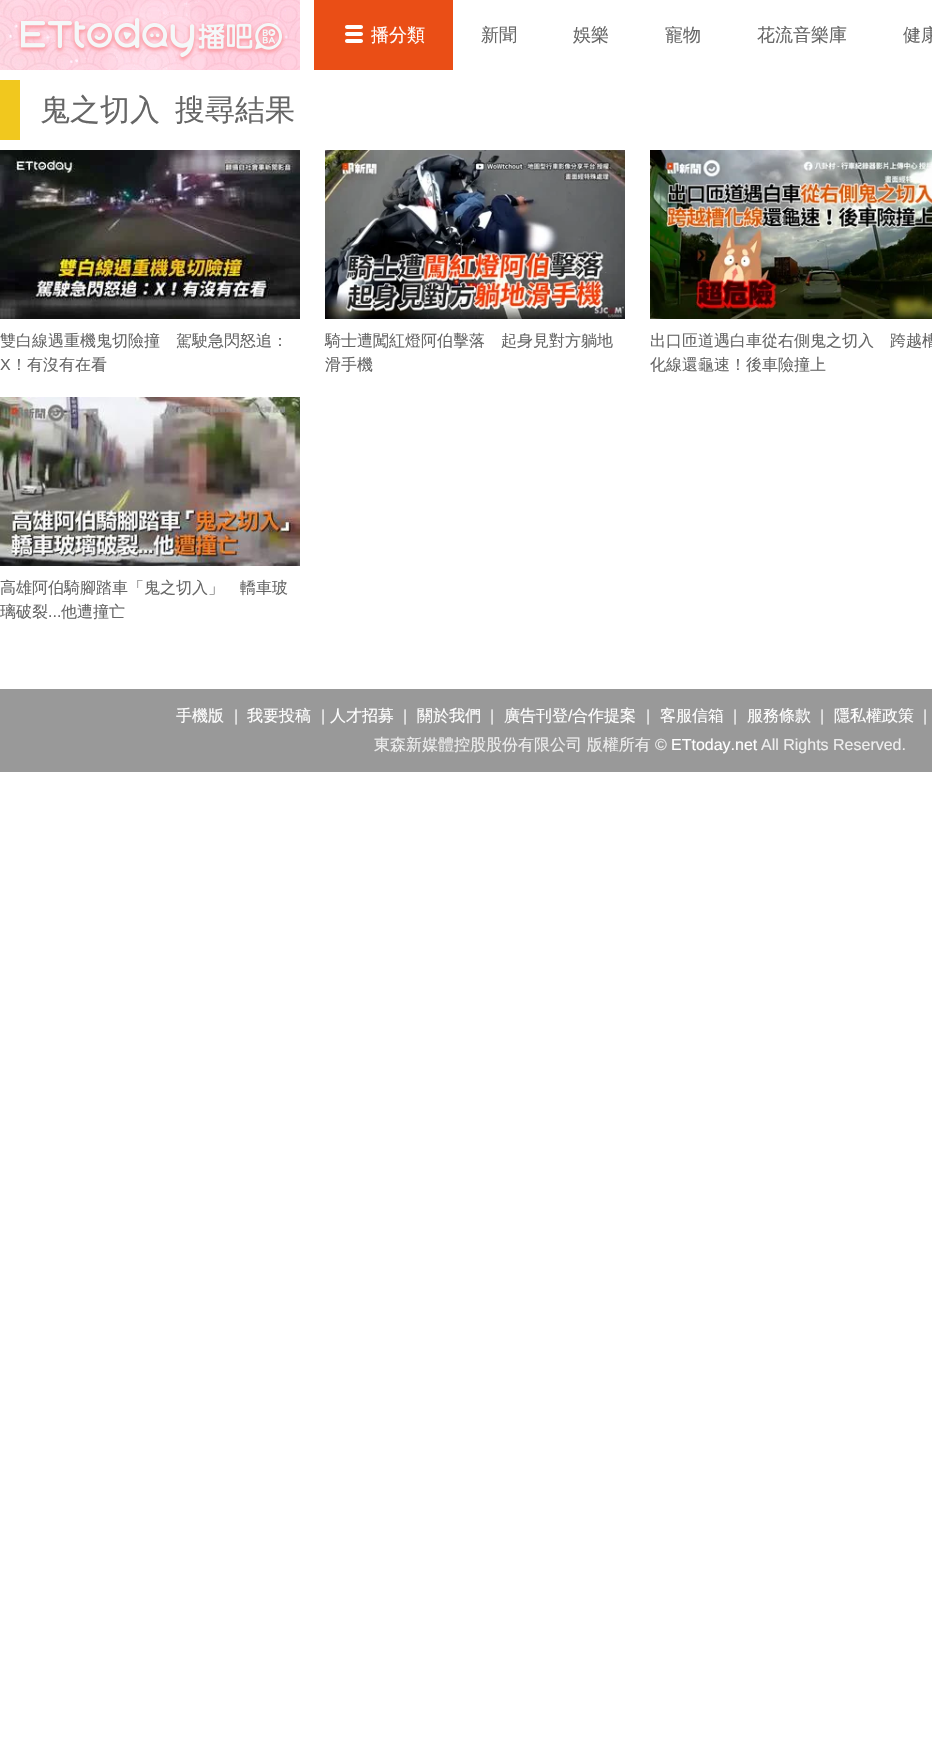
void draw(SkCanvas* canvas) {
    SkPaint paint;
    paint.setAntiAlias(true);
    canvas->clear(0xFFFFFFFF);
    canvas->drawImageRect(SkImages::DeferredFromEncodedData(SkData::MakeFromFileName("img1.png")), SkRect::MakeXYWH(0, 0, 300, 70), SkSamplingOptions());
    paint.setColor(0xFFEA4E16);
    canvas->drawRect(SkRect::MakeXYWH(314, 0, 139, 70), paint);
    canvas->drawImageRect(SkImages::DeferredFromEncodedData(SkData::MakeFromFileName("img2.png")), SkRect::MakeXYWH(345, 25, 18, 18), SkSamplingOptions());
    SkFont font1(fontMgr->matchFamilyStyle("WenQuanYi Zen Hei", SkFontStyle(500, SkFontStyle::kNormal_Width, SkFontStyle::kUpright_Slant)), 18);
    font1.setSubpixel(true);
    paint.setColor(0xFFFFFFFF);
    canvas->drawString("播分類", 371, 41, font1, paint);
    paint.setColor(0xFF666666);
    canvas->drawString("新聞", 481, 41, font1, paint);
    canvas->drawString("娛樂", 573, 41, font1, paint);
    canvas->drawString("寵物", 665, 41, font1, paint);
    canvas->drawString("花流音樂庫", 757, 41, font1, paint);
    canvas->drawString("健康", 903, 41, font1, paint);
    paint.setColor(0xFFF1C81E);
    canvas->drawRect(SkRect::MakeXYWH(0, 80, 20, 60), paint);
    SkFont font2(fontMgr->matchFamilyStyle("WenQuanYi Zen Hei", SkFontStyle(500, SkFontStyle::kNormal_Width, SkFontStyle::kUpright_Slant)), 30);
    font2.setSubpixel(true);
    paint.setColor(0xFF666666);
    canvas->drawString("鬼之切入", 40, 120, font2, paint);
    canvas->drawString("搜尋結果", 175, 120, font2, paint);
    canvas->drawImageRect(SkImages::DeferredFromEncodedData(SkData::MakeFromFileName("img3.png")), SkRect::MakeXYWH(0, 150, 300, 169), SkSamplingOptions());
    SkFont font3(fontMgr->matchFamilyStyle("WenQuanYi Zen Hei", SkFontStyle(500, SkFontStyle::kNormal_Width, SkFontStyle::kUpright_Slant)), 16);
    font3.setSubpixel(true);
    canvas->drawString("雙白線遇重機鬼切險撞　駕駛急閃怒追：", 0, 346, font3, paint);
    SkFont font4(fontMgr->matchFamilyStyle("Liberation Sans", SkFontStyle::Normal()), 16);
    font4.setSubpixel(true);
    canvas->drawString("X", 0, 370, font4, paint);
    canvas->drawString("！有沒有在看", 11, 370, font3, paint);
    canvas->drawImageRect(SkImages::DeferredFromEncodedData(SkData::MakeFromFileName("img4.png")), SkRect::MakeXYWH(325, 150, 300, 169), SkSamplingOptions());
    canvas->drawString("騎士遭闖紅燈阿伯擊落　起身見對方躺地", 325, 346, font3, paint);
    canvas->drawString("滑手機", 325, 370, font3, paint);
    canvas->drawImageRect(SkImages::DeferredFromEncodedData(SkData::MakeFromFileName("img5.png")), SkRect::MakeXYWH(650, 150, 282, 169), SkSamplingOptions());
    canvas->drawString("出口匝道遇白車從右側鬼之切入　跨越槽", 650, 346, font3, paint);
    canvas->drawString("化線還龜速！後車險撞上", 650, 370, font3, paint);
    canvas->drawImageRect(SkImages::DeferredFromEncodedData(SkData::MakeFromFileName("img6.png")), SkRect::MakeXYWH(0, 397, 300, 169), SkSamplingOptions());
    canvas->drawString("高雄阿伯騎腳踏車「鬼之切入」　轎車玻", 0, 593, font3, paint);
    canvas->drawString("璃破裂", 0, 617, font3, paint);
    canvas->drawString("...", 48, 617, font4, paint);
    canvas->drawString("他遭撞亡", 61, 617, font3, paint);
    paint.setColor(0xFF999999);
    canvas->drawRect(SkRect::MakeXYWH(0, 689, 932, 83), paint);
    paint.setColor(0xFFFFFFFF);
    canvas->drawString("手機版", 176, 721, font3, paint);
    paint.setColor(0xFFEEEEEE);
    canvas->drawString("|", 234, 721, font4, paint);
    paint.setColor(0xFFFFFFFF);
    canvas->drawString("我要投稿", 247, 721, font3, paint);
    paint.setColor(0xFFEEEEEE);
    canvas->drawString("|", 321, 721, font4, paint);
    paint.setColor(0xFFFFFFFF);
    canvas->drawString("人才招募", 330, 721, font3, paint);
    paint.setColor(0xFFEEEEEE);
    canvas->drawString("|", 403, 721, font4, paint);
    paint.setColor(0xFFFFFFFF);
    canvas->drawString("關於我們", 417, 721, font3, paint);
    paint.setColor(0xFFEEEEEE);
    canvas->drawString("|", 490, 721, font4, paint);
    paint.setColor(0xFFFFFFFF);
    canvas->drawString("廣告刊登", 504, 721, font3, paint);
    canvas->drawString("/", 568, 721, font4, paint);
    canvas->drawString("合作提案", 572, 721, font3, paint);
    paint.setColor(0xFFEEEEEE);
    canvas->drawString("|", 646, 721, font4, paint);
    paint.setColor(0xFFFFFFFF);
    canvas->drawString("客服信箱", 660, 721, font3, paint);
    paint.setColor(0xFFEEEEEE);
    canvas->drawString("|", 733, 721, font4, paint);
    paint.setColor(0xFFFFFFFF);
    canvas->drawString("服務條款", 747, 721, font3, paint);
    paint.setColor(0xFFEEEEEE);
    canvas->drawString("|", 820, 721, font4, paint);
    paint.setColor(0xFFFFFFFF);
    canvas->drawString("隱私權政策", 834, 721, font3, paint);
    paint.setColor(0xFFEEEEEE);
    canvas->drawString("|", 923, 721, font4, paint);
    canvas->drawString("東森新媒體控股股份有限公司 版權所有", 374, 750, font3, paint);
    canvas->drawString("©", 655, 750, font4, paint);
    paint.setColor(0xFFFFFFFF);
    canvas->drawString("ETtoday.net", 671, 750, font4, paint);
    paint.setColor(0xFFEEEEEE);
    canvas->drawString("All Rights Reserved.", 761, 750, font4, paint);
}
